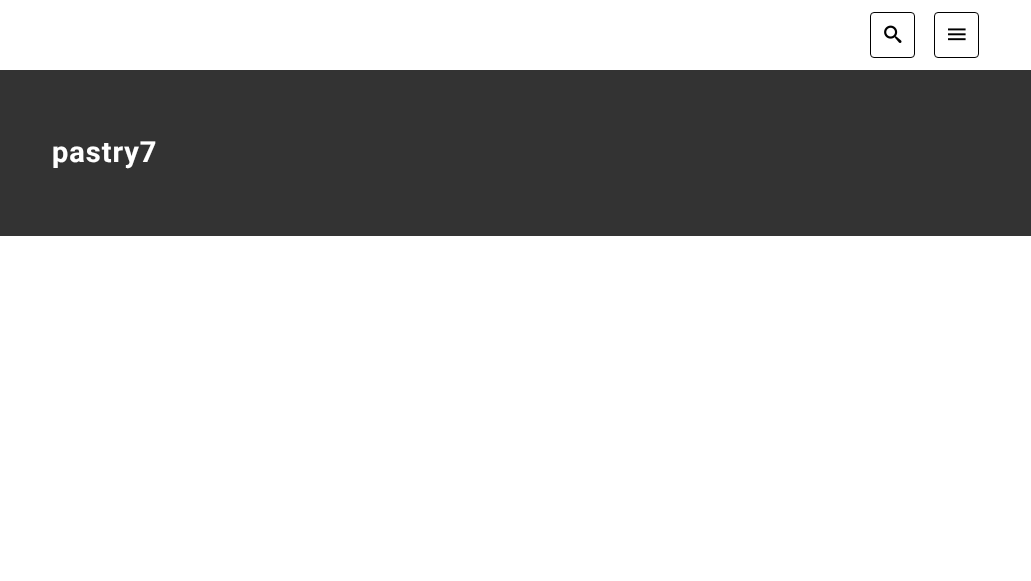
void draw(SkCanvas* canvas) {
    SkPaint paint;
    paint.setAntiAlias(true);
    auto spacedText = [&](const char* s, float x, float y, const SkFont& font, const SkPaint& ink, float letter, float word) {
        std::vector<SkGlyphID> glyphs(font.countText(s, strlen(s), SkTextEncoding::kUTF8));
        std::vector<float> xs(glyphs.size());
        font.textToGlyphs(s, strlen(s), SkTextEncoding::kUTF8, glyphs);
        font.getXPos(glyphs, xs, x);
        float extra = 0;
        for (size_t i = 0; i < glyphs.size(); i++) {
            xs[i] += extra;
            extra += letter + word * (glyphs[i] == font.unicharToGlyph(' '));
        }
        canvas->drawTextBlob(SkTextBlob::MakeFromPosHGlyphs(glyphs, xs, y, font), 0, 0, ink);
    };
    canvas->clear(0xFFFFFFFF);
    paint.setStyle(SkPaint::kStroke_Style);
    paint.setStrokeWidth(1);
    paint.setColor(0xFF000000);
    canvas->drawRoundRect(SkRect::MakeXYWH(870.5f, 12.5f, 44, 45), 3.5f, 3.5f, paint);
    canvas->drawImageRect(SkImages::DeferredFromEncodedData(SkData::MakeFromFileName("img1.png")), SkRect::MakeXYWH(884, 25, 18, 18), SkSamplingOptions());
    canvas->drawRoundRect(SkRect::MakeXYWH(934.5f, 12.5f, 44, 45), 3.5f, 3.5f, paint);
    canvas->drawImageRect(SkImages::DeferredFromEncodedData(SkData::MakeFromFileName("img2.png")), SkRect::MakeXYWH(948, 28, 18, 13), SkSamplingOptions());
    paint.setStyle(SkPaint::kFill_Style);
    paint.setColor(0xFF333333);
    canvas->drawRect(SkRect::MakeXYWH(0, 70, 1031, 166), paint);
    SkFont font1(fontMgr->matchFamilyStyle("Roboto", SkFontStyle::Bold()), 29);
    font1.setSubpixel(true);
    paint.setColor(0xFFFFFFFF);
    spacedText("pastry7", 52, 162, font1, paint, 1, 0);
}
